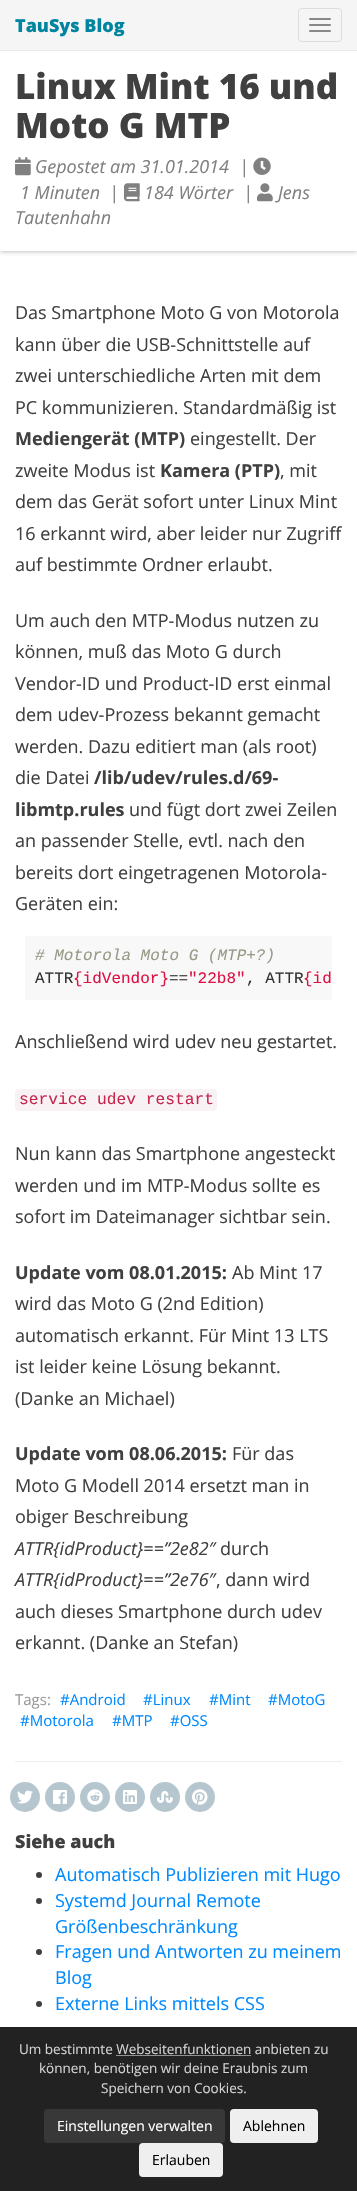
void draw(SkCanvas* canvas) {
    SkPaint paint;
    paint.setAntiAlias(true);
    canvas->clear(0xFFFFFFFF);
    canvas->save();
    canvas->clipRect(SkRect::MakeXYWH(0, 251, 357, 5));
    paint.setColor(0xFFAAAAAA);
    paint.setMaskFilter(SkMaskFilter::MakeBlur(kNormal_SkBlurStyle, 2.5f));
    canvas->drawRect(SkRect::MakeXYWH(0, 47, 357, 204), paint);
    paint.setMaskFilter(nullptr);
    canvas->restore();
    paint.setColor(0xFFF5F5F5);
    canvas->drawRect(SkRect::MakeXYWH(0, 0, 357, 50), paint);
    paint.setColor(0xFFEAEAEA);
    canvas->drawRect(SkRect::MakeXYWH(0, 50, 357, 1), paint);
    SkFont font1(fontMgr->matchFamilyStyle("Open Sans", SkFontStyle(800, SkFontStyle::kNormal_Width, SkFontStyle::kUpright_Slant)), 18);
    font1.setSubpixel(true);
    paint.setColor(0xFF0085A1);
    canvas->drawString("TauSys Blog", 15, 32, font1, paint);
    paint.setStyle(SkPaint::kStroke_Style);
    paint.setStrokeWidth(1);
    paint.setColor(0xFFDDDDDD);
    canvas->drawRoundRect(SkRect::MakeXYWH(298.5f, 8.5f, 43, 33), 3.5f, 3.5f, paint);
    paint.setStyle(SkPaint::kFill_Style);
    paint.setColor(0xFF888888);
    canvas->drawRoundRect(SkRect::MakeXYWH(309, 18, 22, 2), 1, 1, paint);
    canvas->drawRoundRect(SkRect::MakeXYWH(309, 24, 22, 2), 1, 1, paint);
    canvas->drawRoundRect(SkRect::MakeXYWH(309, 30, 22, 2), 1, 1, paint);
    SkFont font2(fontMgr->matchFamilyStyle("Open Sans", SkFontStyle(800, SkFontStyle::kNormal_Width, SkFontStyle::kUpright_Slant)), 35);
    font2.setSubpixel(true);
    paint.setColor(0xFF404040);
    canvas->drawString("Linux Mint 16 und", 15, 99, font2, paint);
    canvas->drawString("Moto G MTP", 15, 138, font2, paint);
    canvas->drawImageRect(SkImages::DeferredFromEncodedData(SkData::MakeFromFileName("img1.png")), SkRect::MakeXYWH(15, 157, 16, 19), SkSamplingOptions());
    SkFont font3(fontMgr->matchFamilyStyle("Open Sans", SkFontStyle::Italic()), 18);
    font3.setSubpixel(true);
    paint.setColor(0xFF808080);
    canvas->drawString("Gepostet am 31.01.2014", 35, 173, font3, paint);
    canvas->drawString("|", 239, 173, font3, paint);
    canvas->drawImageRect(SkImages::DeferredFromEncodedData(SkData::MakeFromFileName("img2.png")), SkRect::MakeXYWH(253, 157, 18, 18), SkSamplingOptions());
    canvas->drawString("1 Minuten", 20, 199, font3, paint);
    canvas->drawString("|", 109, 199, font3, paint);
    canvas->drawImageRect(SkImages::DeferredFromEncodedData(SkData::MakeFromFileName("img3.png")), SkRect::MakeXYWH(124, 183, 16, 19), SkSamplingOptions());
    canvas->drawString("184 Wörter", 144, 199, font3, paint);
    canvas->drawString("|", 243, 199, font3, paint);
    canvas->drawImageRect(SkImages::DeferredFromEncodedData(SkData::MakeFromFileName("img4.png")), SkRect::MakeXYWH(257, 183, 16, 19), SkSamplingOptions());
    canvas->drawString("Jens", 278, 199, font3, paint);
    canvas->drawString("Tautenhahn", 15, 224, font3, paint);
    SkFont font4(fontMgr->matchFamilyStyle("Open Sans", SkFontStyle::Normal()), 18);
    font4.setSubpixel(true);
    paint.setColor(0xFF404040);
    canvas->drawString("Das Smartphone Moto G von Motorola", 15, 319, font4, paint);
    canvas->drawString("kann über die USB-Schnittstelle auf", 15, 351, font4, paint);
    canvas->drawString("zwei unterschiedliche Arten mit dem", 15, 382, font4, paint);
    canvas->drawString("PC kommunizieren. Standardmäßig ist", 15, 414, font4, paint);
    SkFont font5(fontMgr->matchFamilyStyle("Open Sans", SkFontStyle::Bold()), 18);
    font5.setSubpixel(true);
    canvas->drawString("Mediengerät (MTP)", 15, 445, font5, paint);
    canvas->drawString("eingestellt. Der", 190, 445, font4, paint);
    canvas->drawString("zweite Modus ist", 15, 477, font4, paint);
    canvas->drawString("Kamera (PTP)", 160, 477, font5, paint);
    canvas->drawString(", mit", 280, 477, font4, paint);
    canvas->drawString("dem das Gerät sofort unter Linux Mint", 15, 508, font4, paint);
    canvas->drawString("16 erkannt wird, aber leider nur Zugriff", 15, 540, font4, paint);
    canvas->drawString("auf bestimmte Ordner erlaubt.", 15, 571, font4, paint);
    canvas->drawString("Um auch den MTP-Modus nutzen zu", 15, 627, font4, paint);
    canvas->drawString("können, muß das Moto G durch", 15, 658, font4, paint);
    canvas->drawString("Vendor-ID und Product-ID erst einmal", 15, 690, font4, paint);
    canvas->drawString("dem udev-Prozess bekannt gemacht", 15, 721, font4, paint);
    canvas->drawString("werden. Dazu editiert man (als root)", 15, 753, font4, paint);
    canvas->drawString("die Datei", 15, 784, font4, paint);
    canvas->drawString("/lib/udev/rules.d/69-", 94, 784, font5, paint);
    canvas->drawString("libmtp.rules", 15, 816, font5, paint);
    canvas->drawString("und fügt dort zwei Zeilen", 129, 816, font4, paint);
    canvas->drawString("an passender Stelle, evtl. nach den", 15, 847, font4, paint);
    canvas->drawString("bereits dort eingetragenen Motorola-", 15, 879, font4, paint);
    canvas->drawString("Geräten ein:", 15, 910, font4, paint);
    paint.setColor(0xFFF8F8F8);
    canvas->drawRect(SkRect::MakeXYWH(25, 936, 307, 64), paint);
    SkFont font6(fontMgr->matchFamilyStyle("Liberation Mono", SkFontStyle::Italic()), 16);
    font6.setSubpixel(true);
    paint.setColor(0xFF999988);
    canvas->drawString("# Motorola Moto G (MTP+?)", 35, 960, font6, paint);
    SkFont font7(fontMgr->matchFamilyStyle("Liberation Mono", SkFontStyle::Normal()), 16);
    font7.setSubpixel(true);
    paint.setColor(0xFF333333);
    canvas->drawString("ATTR", 35, 983, font7, paint);
    paint.setColor(0xFFDD1144);
    canvas->drawString("{idVendor}", 73, 983, font7, paint);
    paint.setColor(0xFF333333);
    canvas->drawString("==", 169, 983, font7, paint);
    paint.setColor(0xFFDD1144);
    canvas->drawString("\"22b8\"", 188, 983, font7, paint);
    paint.setColor(0xFF333333);
    canvas->drawString(", ATTR", 246, 983, font7, paint);
    paint.setColor(0xFFDD1144);
    canvas->drawString("{id", 303, 983, font7, paint);
    paint.setColor(0xFF404040);
    canvas->drawString("Anschließend wird udev neu gestartet.", 15, 1048, font4, paint);
    paint.setColor(0xFFF9F2F4);
    canvas->drawRoundRect(SkRect::MakeXYWH(15, 1089, 202, 22), 4, 4, paint);
    SkFont font8(fontMgr->matchFamilyStyle("Liberation Mono", SkFontStyle::Normal()), 16.25f);
    font8.setSubpixel(true);
    paint.setColor(0xFFC7254E);
    canvas->drawString("service udev restart", 19, 1104, font8, paint);
    paint.setColor(0xFF404040);
    canvas->drawString("Nun kann das Smartphone angesteckt", 15, 1160, font4, paint);
    canvas->drawString("werden und im MTP-Modus sollte es", 15, 1192, font4, paint);
    canvas->drawString("sofort im Dateimanager sichtbar sein.", 15, 1223, font4, paint);
    canvas->drawString("Update vom 08.01.2015:", 15, 1279, font5, paint);
    canvas->drawString("Ab Mint 17", 232, 1279, font4, paint);
    canvas->drawString("wird das Moto G (2nd Edition)", 15, 1310, font4, paint);
    canvas->drawString("automatisch erkannt. Für Mint 13 LTS", 15, 1342, font4, paint);
    canvas->drawString("ist leider keine Lösung bekannt.", 15, 1373, font4, paint);
    canvas->drawString("(Danke an Michael)", 15, 1405, font4, paint);
    canvas->drawString("Update vom 08.06.2015:", 15, 1460, font5, paint);
    canvas->drawString("Für das", 232, 1460, font4, paint);
    canvas->drawString("Moto G Modell 2014 ersetzt man in", 15, 1492, font4, paint);
    canvas->drawString("obiger Beschreibung", 15, 1523, font4, paint);
    canvas->drawString("ATTR{idProduct}==”2e82″", 15, 1555, font3, paint);
    canvas->drawString("durch", 220, 1555, font4, paint);
    canvas->drawString("ATTR{idProduct}==”2e76″", 15, 1586, font3, paint);
    canvas->drawString(", dann wird", 216, 1586, font4, paint);
    canvas->drawString("auch dieses Smartphone durch udev", 15, 1618, font4, paint);
    canvas->drawString("erkannt. (Danke an Stefan)", 15, 1649, font4, paint);
    SkFont font9(fontMgr->matchFamilyStyle("Open Sans", SkFontStyle::Normal()), 15);
    font9.setSubpixel(true);
    paint.setColor(0xFF999999);
    canvas->drawString("Tags:", 15, 1705, font9, paint);
    paint.setColor(0xFF008AFF);
    canvas->drawString("#Android", 60, 1705, font9, paint);
    canvas->drawString("#Linux", 143, 1705, font9, paint);
    canvas->drawString("#Mint", 209, 1705, font9, paint);
    canvas->drawString("#MotoG", 268, 1705, font9, paint);
    canvas->drawString("#Motorola", 20, 1726, font9, paint);
    canvas->drawString("#MTP", 112, 1726, font9, paint);
    canvas->drawString("#OSS", 170, 1726, font9, paint);
    paint.setColor(0xFFEEEEEE);
    canvas->drawRect(SkRect::MakeXYWH(15, 1761, 327, 1), paint);
    paint.setColor(0xFFB5C6CE);
    canvas->drawCircle(25, 1797, 15, paint);
    canvas->drawImageRect(SkImages::DeferredFromEncodedData(SkData::MakeFromFileName("img5.png")), SkRect::MakeXYWH(17, 1790, 16, 14), SkSamplingOptions());
    canvas->drawCircle(60, 1797, 15, paint);
    canvas->drawImageRect(SkImages::DeferredFromEncodedData(SkData::MakeFromFileName("img6.png")), SkRect::MakeXYWH(53, 1790, 14, 14), SkSamplingOptions());
    canvas->drawCircle(95, 1797, 15, paint);
    canvas->drawImageRect(SkImages::DeferredFromEncodedData(SkData::MakeFromFileName("img7.png")), SkRect::MakeXYWH(87, 1789, 16, 16), SkSamplingOptions());
    canvas->drawCircle(130, 1797, 15, paint);
    canvas->drawImageRect(SkImages::DeferredFromEncodedData(SkData::MakeFromFileName("img8.png")), SkRect::MakeXYWH(123, 1790, 14, 14), SkSamplingOptions());
    canvas->drawCircle(165, 1797, 15, paint);
    canvas->drawImageRect(SkImages::DeferredFromEncodedData(SkData::MakeFromFileName("img9.png")), SkRect::MakeXYWH(157, 1791, 16, 12), SkSamplingOptions());
    canvas->drawCircle(200, 1797, 15, paint);
    canvas->drawImageRect(SkImages::DeferredFromEncodedData(SkData::MakeFromFileName("img10.png")), SkRect::MakeXYWH(192, 1789, 16, 16), SkSamplingOptions());
    paint.setColor(0xFF404040);
    canvas->drawString("Siehe auch", 15, 1848, font1, paint);
    canvas->drawCircle(39, 1875, 3, paint);
    paint.setColor(0xFF008AFF);
    canvas->drawString("Automatisch Publizieren mit Hugo", 55, 1881, font4, paint);
    paint.setColor(0xFF404040);
    canvas->drawCircle(39, 1901, 3, paint);
    paint.setColor(0xFF008AFF);
    canvas->drawString("Systemd Journal Remote", 55, 1907, font4, paint);
    canvas->drawString("Größenbeschränkung", 55, 1933, font4, paint);
    paint.setColor(0xFF404040);
    canvas->drawCircle(39, 1952, 3, paint);
    paint.setColor(0xFF008AFF);
    canvas->drawString("Fragen und Antworten zu meinem", 55, 1958, font4, paint);
    canvas->drawString("Blog", 55, 1984, font4, paint);
    paint.setColor(0xFF404040);
    canvas->drawCircle(39, 2004, 3, paint);
    paint.setColor(0xFF008AFF);
    canvas->drawString("Externe Links mittels CSS", 55, 2010, font4, paint);
    paint.setColor(0xFF222222);
    canvas->drawRect(SkRect::MakeXYWH(0, 2027, 357, 164), paint);
    SkFont font10(fontMgr->matchFamilyStyle("Open Sans", SkFontStyle::Normal()), 13.5f);
    font10.setSubpixel(true);
    paint.setColor(0xFFD3D3D3);
    canvas->drawString("Um bestimmte Webseitenfunktionen anbieten zu", 19, 2054, font10, paint);
    paint.setColor(0xFF919191);
    canvas->drawRect(SkRect::MakeXYWH(116, 2055, 135, 1), paint);
    paint.setColor(0xFFD3D3D3);
    canvas->drawString("können, benötigen wir deine Eraubnis zum", 39, 2073, font10, paint);
    canvas->drawString("Speichern von Cookies.", 101, 2093, font10, paint);
    paint.setColor(0xFF383838);
    canvas->drawRoundRect(SkRect::MakeXYWH(44, 2109, 181, 34), 4, 4, paint);
    SkFont font11(fontMgr->matchFamilyStyle("Open Sans", SkFontStyle::Normal()), 14);
    font11.setSubpixel(true);
    paint.setColor(0xFFFFFFFF);
    canvas->drawString("Einstellungen verwalten", 57, 2131, font11, paint);
    paint.setColor(0xFFEFEFEF);
    canvas->drawRoundRect(SkRect::MakeXYWH(230, 2109, 88, 34), 4, 4, paint);
    paint.setColor(0xFF000000);
    canvas->drawString("Ablehnen", 243, 2131, font11, paint);
    paint.setColor(0xFFEFEFEF);
    canvas->drawRoundRect(SkRect::MakeXYWH(139, 2143, 84, 34), 4, 4, paint);
    paint.setColor(0xFF000000);
    canvas->drawString("Erlauben", 152, 2165, font11, paint);
}
